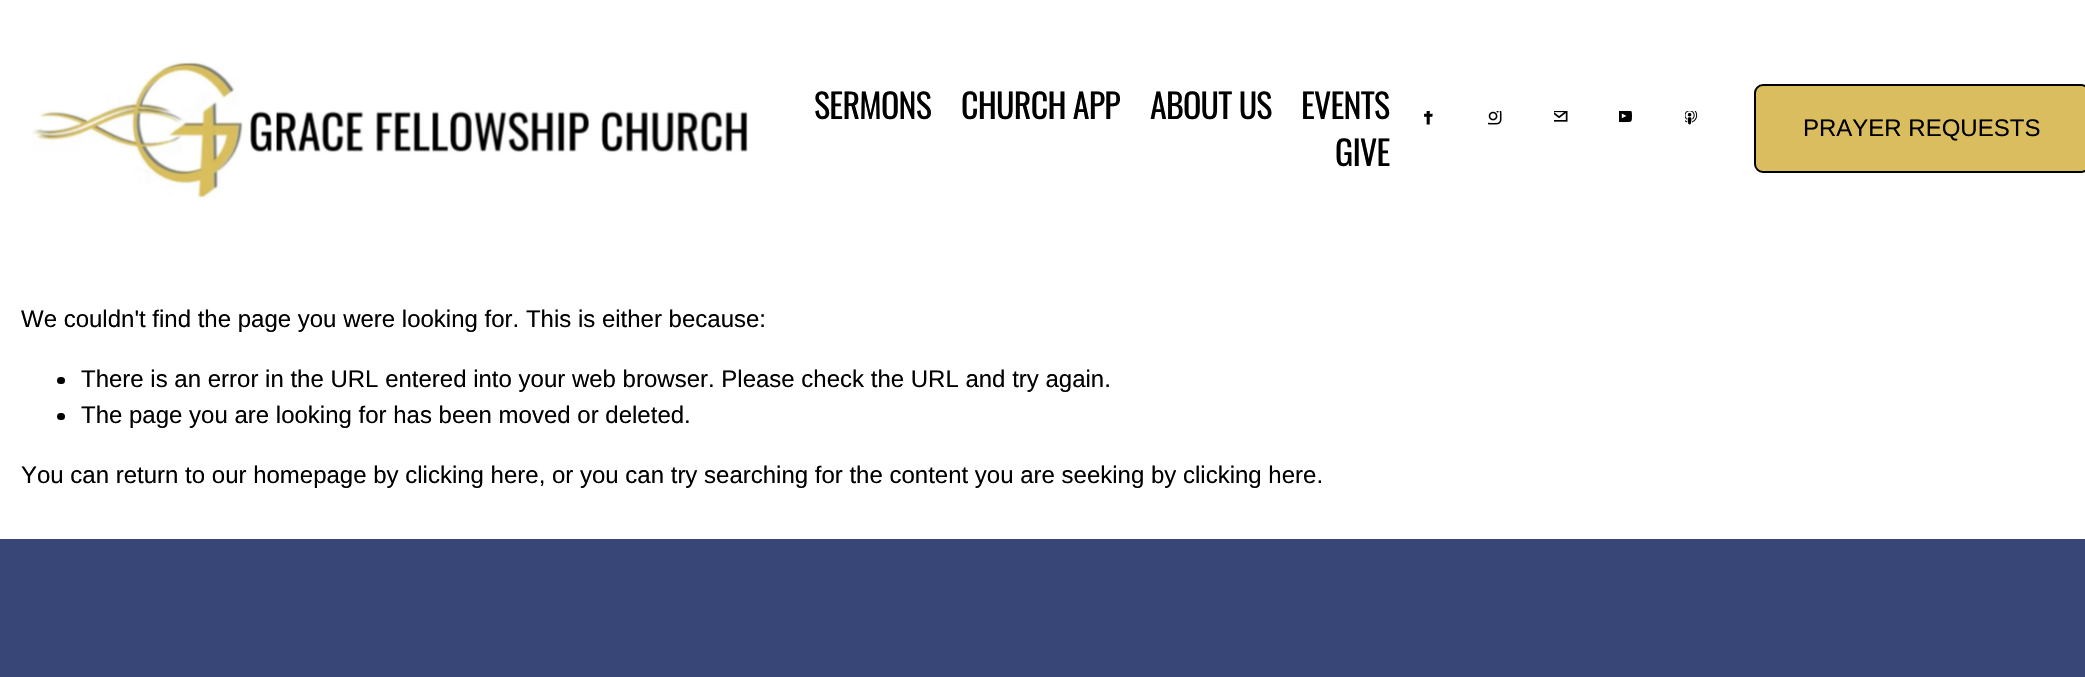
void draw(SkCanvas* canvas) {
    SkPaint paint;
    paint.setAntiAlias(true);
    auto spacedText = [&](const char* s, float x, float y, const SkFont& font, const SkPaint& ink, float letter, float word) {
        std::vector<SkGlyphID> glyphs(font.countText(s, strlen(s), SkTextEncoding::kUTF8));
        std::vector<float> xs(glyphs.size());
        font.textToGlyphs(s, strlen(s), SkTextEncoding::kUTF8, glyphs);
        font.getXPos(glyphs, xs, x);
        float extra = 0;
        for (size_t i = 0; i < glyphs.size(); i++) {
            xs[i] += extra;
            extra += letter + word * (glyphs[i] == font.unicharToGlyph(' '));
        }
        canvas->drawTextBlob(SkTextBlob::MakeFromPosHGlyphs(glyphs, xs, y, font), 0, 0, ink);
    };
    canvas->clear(0xFFFFFFFF);
    canvas->drawImageRect(SkImages::DeferredFromEncodedData(SkData::MakeFromFileName("img1.png")), SkRect::MakeXYWH(32, 59, 716, 141), SkSamplingOptions());
    SkFont font1(fontMgr->matchFamilyStyle("Oswald", SkFontStyle::Normal()), 34);
    font1.setSubpixel(true);
    paint.setColor(0xFF000000);
    spacedText("SERMONS", 814, 119, font1, paint, -0.75f, 0);
    spacedText("CHURCH APP", 961, 119, font1, paint, -0.75f, 0);
    spacedText("ABOUT US", 1150, 119, font1, paint, -0.75f, 0);
    spacedText("EVENTS", 1301, 119, font1, paint, -0.75f, 0);
    spacedText("GIVE", 1335, 166, font1, paint, -0.75f, 0);
    canvas->drawImageRect(SkImages::DeferredFromEncodedData(SkData::MakeFromFileName("img2.png")), SkRect::MakeXYWH(1424, 111, 9, 14), SkSamplingOptions());
    canvas->drawImageRect(SkImages::DeferredFromEncodedData(SkData::MakeFromFileName("img3.png")), SkRect::MakeXYWH(1488, 111, 14, 14), SkSamplingOptions());
    canvas->drawImageRect(SkImages::DeferredFromEncodedData(SkData::MakeFromFileName("img4.png")), SkRect::MakeXYWH(1554, 111, 14, 11), SkSamplingOptions());
    canvas->drawImageRect(SkImages::DeferredFromEncodedData(SkData::MakeFromFileName("img5.png")), SkRect::MakeXYWH(1619, 111, 13, 12), SkSamplingOptions());
    canvas->drawImageRect(SkImages::DeferredFromEncodedData(SkData::MakeFromFileName("img6.png")), SkRect::MakeXYWH(1685, 111, 13, 14), SkSamplingOptions());
    paint.setColor(0xFFDABD5E);
    canvas->drawRoundRect(SkRect::MakeXYWH(1755, 85, 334, 87), 8, 8, paint);
    paint.setStyle(SkPaint::kStroke_Style);
    paint.setStrokeWidth(2);
    paint.setColor(0xFF000000);
    canvas->drawRoundRect(SkRect::MakeXYWH(1755, 85, 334, 87), 8, 8, paint);
    SkFont font2(fontMgr->matchFamilyStyle("Arimo", SkFontStyle::Normal()), 24);
    font2.setSubpixel(true);
    paint.setStyle(SkPaint::kFill_Style);
    canvas->drawString("PRAYER REQUESTS", 1803, 136, font2, paint);
    canvas->drawString("We couldn't find the page you were looking for. This is either because:", 21, 327, font2, paint);
    canvas->drawRoundRect(SkRect::MakeXYWH(57, 377, 8, 7), 3.5f, 3.5f, paint);
    canvas->drawString("There is an error in the URL entered into your web browser. Please check the URL and try again.", 81, 387, font2, paint);
    canvas->drawRoundRect(SkRect::MakeXYWH(57, 413, 8, 7), 3.5f, 3.5f, paint);
    canvas->drawString("The page you are looking for has been moved or deleted.", 81, 423, font2, paint);
    canvas->drawString("You can return to our homepage by clicking here, or you can try searching for the content you are seeking by clicking here.", 21, 483, font2, paint);
    paint.setColor(0xFF384677);
    canvas->drawRect(SkRect::MakeXYWH(0, 539, 2085, 138), paint);
}
